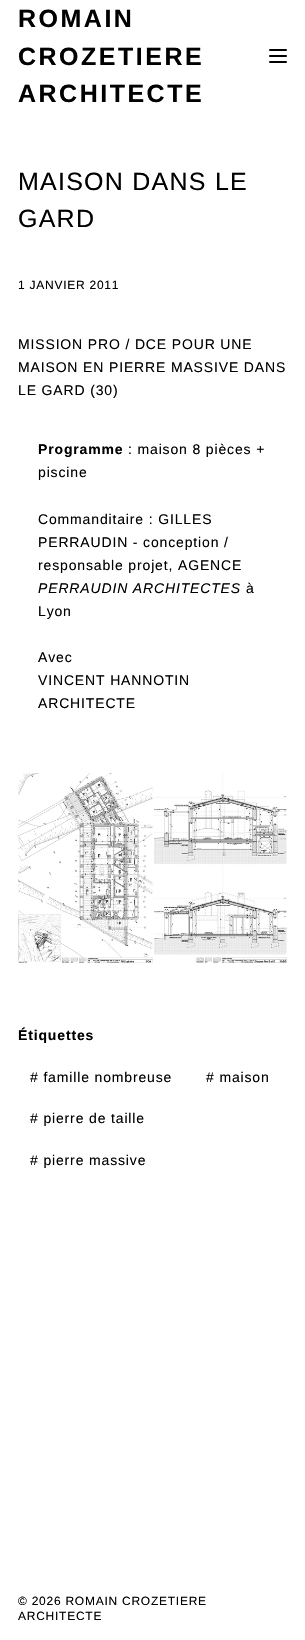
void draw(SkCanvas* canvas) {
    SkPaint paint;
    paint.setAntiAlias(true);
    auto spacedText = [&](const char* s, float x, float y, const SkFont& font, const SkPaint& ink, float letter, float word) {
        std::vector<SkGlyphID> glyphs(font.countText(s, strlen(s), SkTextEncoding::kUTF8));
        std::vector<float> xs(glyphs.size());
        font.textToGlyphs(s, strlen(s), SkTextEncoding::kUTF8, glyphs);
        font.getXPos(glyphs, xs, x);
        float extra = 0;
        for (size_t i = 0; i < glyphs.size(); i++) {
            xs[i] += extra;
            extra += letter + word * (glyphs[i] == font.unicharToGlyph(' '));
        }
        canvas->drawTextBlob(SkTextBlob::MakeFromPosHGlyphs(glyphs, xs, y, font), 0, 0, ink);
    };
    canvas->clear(0xFFFFFFFF);
    SkFont font1(fontMgr->matchFamilyStyle("Liberation Sans", SkFontStyle::Bold()), 25);
    font1.setSubpixel(true);
    paint.setColor(0xFF000000);
    spacedText("ROMAIN", 18, 27, font1, paint, 2.5f, 0);
    spacedText("CROZETIERE", 18, 65, font1, paint, 2.5f, 0);
    spacedText("ARCHITECTE", 18, 102, font1, paint, 2.5f, 0);
    canvas->drawRoundRect(SkRect::MakeXYWH(269, 49, 18, 2), 1, 1, paint);
    canvas->drawRoundRect(SkRect::MakeXYWH(269, 55, 18, 2), 1, 1, paint);
    canvas->drawRoundRect(SkRect::MakeXYWH(269, 61, 18, 2), 1, 1, paint);
    SkFont font2(fontMgr->matchFamilyStyle("Liberation Sans", SkFontStyle::Normal()), 25);
    font2.setSubpixel(true);
    spacedText("MAISON DANS LE", 18, 190, font2, paint, 1.25f, 0);
    spacedText("GARD", 18, 227, font2, paint, 1.25f, 0);
    SkFont font3(fontMgr->matchFamilyStyle("Liberation Sans", SkFontStyle::Normal()), 12);
    font3.setSubpixel(true);
    spacedText("1 JANVIER 2011", 18, 289, font3, paint, 0.75f, 0);
    SkFont font4(fontMgr->matchFamilyStyle("Liberation Sans", SkFontStyle::Normal()), 14);
    font4.setSubpixel(true);
    spacedText("MISSION PRO / DCE POUR UNE", 18, 349, font4, paint, 0.85f, 0);
    spacedText("MAISON EN PIERRE MASSIVE DANS", 18, 372, font4, paint, 0.85f, 0);
    spacedText("LE GARD (30)", 18, 395, font4, paint, 0.85f, 0);
    SkFont font5(fontMgr->matchFamilyStyle("Liberation Sans", SkFontStyle::Bold()), 14);
    font5.setSubpixel(true);
    spacedText("Programme", 38, 454, font5, paint, 0.85f, 0);
    spacedText(": maison 8 pièces +", 128, 454, font4, paint, 0.85f, 0);
    spacedText("piscine", 38, 477, font4, paint, 0.85f, 0);
    spacedText("Commanditaire : GILLES", 38, 524, font4, paint, 0.85f, 0);
    spacedText("PERRAUDIN - conception /", 38, 547, font4, paint, 0.85f, 0);
    spacedText("responsable projet, AGENCE", 38, 570, font4, paint, 0.85f, 0);
    SkFont font6(fontMgr->matchFamilyStyle("Liberation Sans", SkFontStyle::Italic()), 14);
    font6.setSubpixel(true);
    spacedText("PERRAUDIN ARCHITECTES", 38, 593, font6, paint, 0.85f, 0);
    spacedText("à", 246, 593, font4, paint, 0.85f, 0);
    spacedText("Lyon", 38, 616, font4, paint, 0.85f, 0);
    spacedText("Avec", 38, 662, font4, paint, 0.85f, 0);
    spacedText("VINCENT HANNOTIN", 38, 685, font4, paint, 0.85f, 0);
    spacedText("ARCHITECTE", 38, 708, font4, paint, 0.85f, 0);
    canvas->drawImageRect(SkImages::DeferredFromEncodedData(SkData::MakeFromFileName("img1.png")), SkRect::MakeXYWH(18, 773, 269, 190), SkSamplingOptions());
    spacedText("Étiquettes", 18, 1040, font5, paint, 0.85f, 0);
    spacedText("# famille nombreuse", 30, 1082, font4, paint, 0.85f, 0);
    spacedText("# maison", 206, 1082, font4, paint, 0.85f, 0);
    spacedText("# pierre de taille", 30, 1123, font4, paint, 0.85f, 0);
    spacedText("# pierre massive", 30, 1165, font4, paint, 0.85f, 0);
    spacedText("© 2026 ROMAIN CROZETIERE", 18, 1605, font3, paint, 0.75f, 0);
    spacedText("ARCHITECTE", 18, 1620, font3, paint, 0.75f, 0);
}
